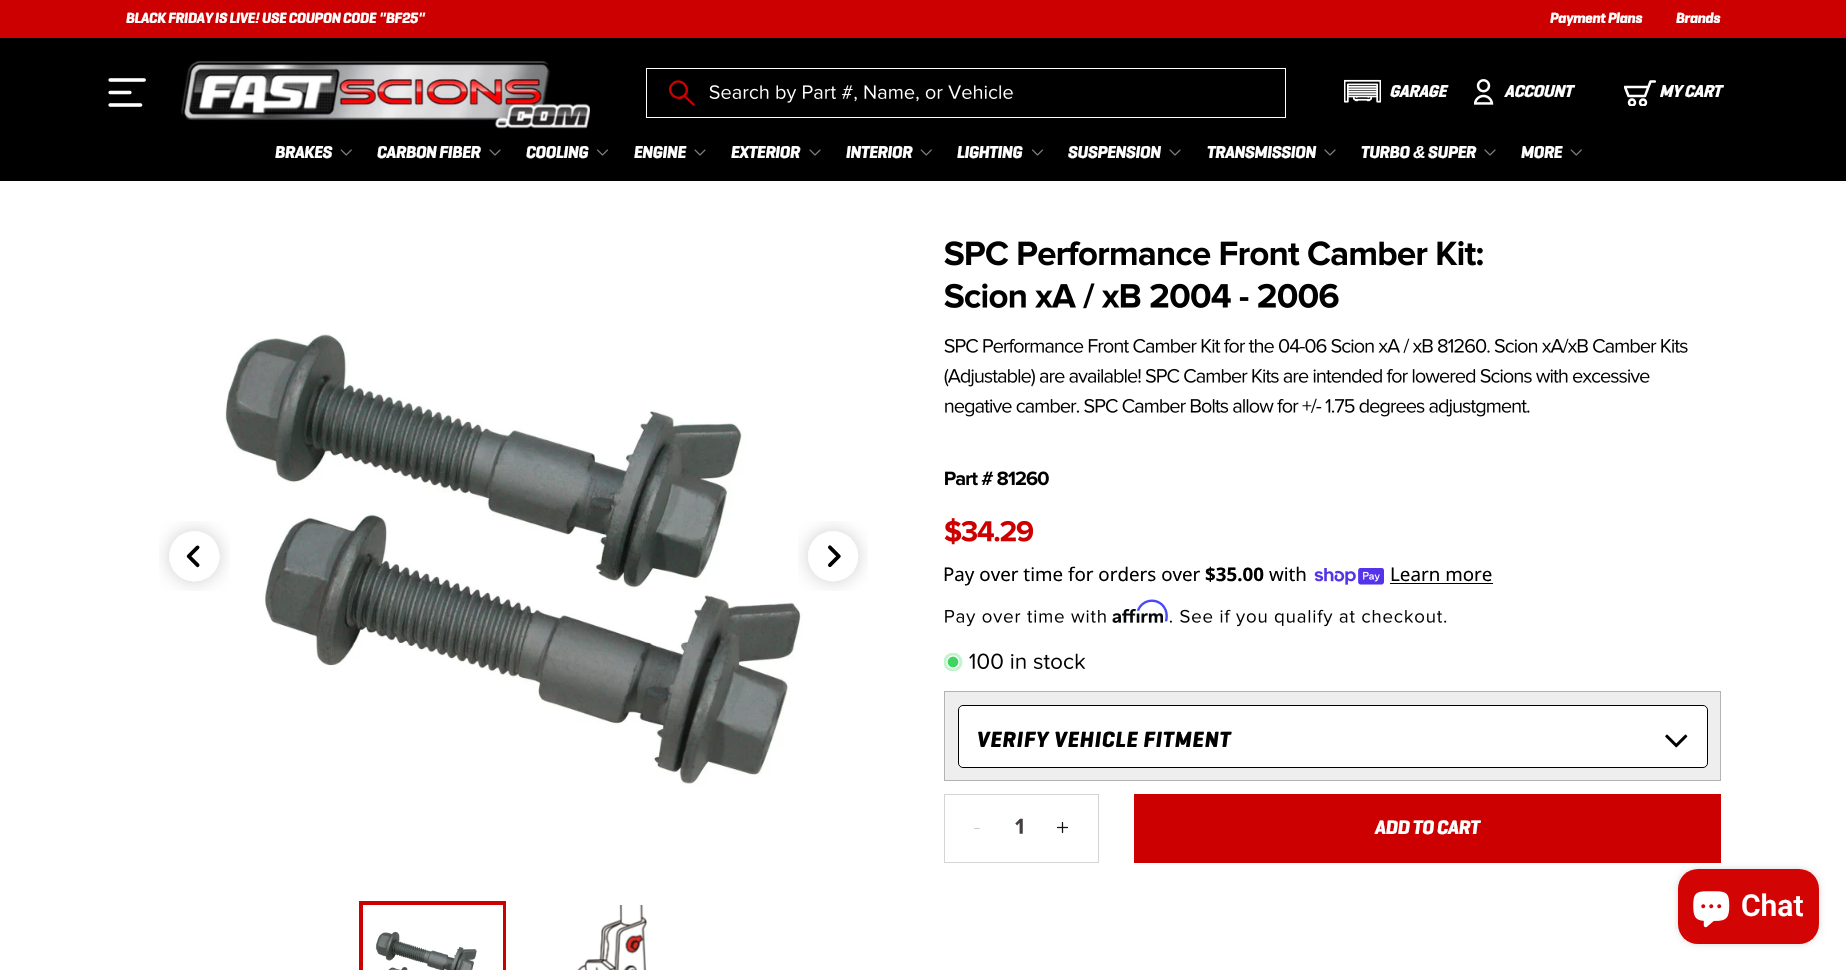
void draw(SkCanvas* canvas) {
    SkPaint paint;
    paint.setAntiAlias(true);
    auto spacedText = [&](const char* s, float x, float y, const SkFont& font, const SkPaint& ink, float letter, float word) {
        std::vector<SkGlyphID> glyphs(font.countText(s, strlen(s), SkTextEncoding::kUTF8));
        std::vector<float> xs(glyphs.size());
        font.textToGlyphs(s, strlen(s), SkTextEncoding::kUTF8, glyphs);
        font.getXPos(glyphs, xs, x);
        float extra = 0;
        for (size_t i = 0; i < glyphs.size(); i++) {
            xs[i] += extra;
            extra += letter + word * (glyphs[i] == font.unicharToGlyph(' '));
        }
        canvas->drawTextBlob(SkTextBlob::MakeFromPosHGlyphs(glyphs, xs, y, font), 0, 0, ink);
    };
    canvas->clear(0xFFFFFFFF);
    paint.setColor(0xFFCC0000);
    canvas->drawRect(SkRect::MakeXYWH(0, 0, 1846, 38), paint);
    SkFont font1(fontMgr->matchFamilyStyle("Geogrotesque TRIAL", SkFontStyle::BoldItalic()), 15);
    font1.setSubpixel(true);
    paint.setColor(0xFFFFFFFF);
    spacedText("BLACK FRIDAY IS LIVE", 126, 23, font1, paint, -0.4f, 0);
    SkFont font2(fontMgr->matchFamilyStyle("Liberation Sans", SkFontStyle::BoldItalic()), 15);
    font2.setSubpixel(true);
    spacedText("!", 255, 23, font2, paint, -0.4f, 0);
    spacedText("USE COUPON CODE", 262, 23, font1, paint, -0.4f, 0);
    spacedText("\"", 379, 23, font2, paint, -0.4f, 0);
    spacedText("BF25", 386, 23, font1, paint, -0.4f, 0);
    spacedText("\"", 418, 23, font2, paint, -0.4f, 0);
    spacedText("Payment Plans", 1550, 23, font1, paint, -0.4f, 0);
    spacedText("Brands", 1676, 23, font1, paint, -0.4f, 0);
    paint.setColor(0xFF000000);
    canvas->drawRect(SkRect::MakeXYWH(0, 38, 1846, 143), paint);
    canvas->drawImageRect(SkImages::DeferredFromEncodedData(SkData::MakeFromFileName("img1.png")), SkRect::MakeXYWH(108, 78, 38, 29), SkSamplingOptions());
    canvas->drawImageRect(SkImages::DeferredFromEncodedData(SkData::MakeFromFileName("img2.png")), SkRect::MakeXYWH(181, 61, 409, 68), SkSamplingOptions());
    paint.setStyle(SkPaint::kStroke_Style);
    paint.setStrokeWidth(1);
    paint.setColor(0xFFFFFFFF);
    canvas->drawRect(SkRect::MakeXYWH(646.5f, 68.5f, 639, 49), paint);
    canvas->drawImageRect(SkImages::DeferredFromEncodedData(SkData::MakeFromFileName("img3.png")), SkRect::MakeXYWH(709, 85, 304, 18), SkSamplingOptions());
    paint.setStrokeWidth(2.4f);
    paint.setColor(0xFFCC0000);
    canvas->drawPath(SkPathBuilder().moveTo(672.5f, 84).cubicTo(680, 76, 692, 88, 684.5f, 95.5f).cubicTo(676.5f, 103, 665, 91.5f, 672.5f, 84).close().detach(), paint);
    paint.setStrokeCap(SkPaint::kRound_Cap);
    canvas->drawPath(SkPathBuilder().moveTo(685, 96.5f).lineTo(693.5f, 104.5f).detach(), paint);
    canvas->drawImageRect(SkImages::DeferredFromEncodedData(SkData::MakeFromFileName("img4.png")), SkRect::MakeXYWH(1344, 79, 37, 24), SkSamplingOptions());
    SkFont font3(fontMgr->matchFamilyStyle("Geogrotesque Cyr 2", SkFontStyle::BoldItalic()), 17.5f);
    font3.setSubpixel(true);
    paint.setStyle(SkPaint::kFill_Style);
    paint.setColor(0xFFFFFFFF);
    spacedText("GARAGE", 1389, 97, font3, paint, -0.5f, 0);
    canvas->drawImageRect(SkImages::DeferredFromEncodedData(SkData::MakeFromFileName("img5.png")), SkRect::MakeXYWH(1474, 79, 20, 26), SkSamplingOptions());
    spacedText("ACCOUNT", 1504, 97, font3, paint, -0.5f, 0);
    canvas->save();
    canvas->clipRect(SkRect::MakeXYWH(1624, 80, 32, 26));
    paint.setStyle(SkPaint::kStroke_Style);
    paint.setStrokeWidth(2.5f);
    paint.setStrokeJoin(SkPaint::kRound_Join);
    canvas->drawPath(SkPathBuilder().moveTo(1655, 81.5f).lineTo(1650.5f, 81.5f).lineTo(1645, 96).lineTo(1628.5f, 96).lineTo(1625, 87).lineTo(1648.5f, 87).detach(), paint);
    paint.setStrokeCap(SkPaint::kButt_Cap);
    paint.setStrokeJoin(SkPaint::kMiter_Join);
    canvas->drawCircle(1632, 102.5f, 3, paint);
    canvas->drawCircle(1643, 102.5f, 3, paint);
    canvas->restore();
    paint.setStyle(SkPaint::kFill_Style);
    spacedText("MY CART", 1659, 97, font3, paint, -0.5f, 0);
    SkFont font4(fontMgr->matchFamilyStyle("Geogrotesque TRIAL", SkFontStyle::BoldItalic()), 17.5f);
    font4.setSubpixel(true);
    spacedText("BRAKES", 275, 158, font4, paint, -0.5f, 0);
    canvas->drawImageRect(SkImages::DeferredFromEncodedData(SkData::MakeFromFileName("img6.png")), SkRect::MakeXYWH(340, 149, 12, 7), SkSamplingOptions());
    spacedText("CARBON FIBER", 377, 158, font4, paint, -0.5f, 0);
    canvas->drawImageRect(SkImages::DeferredFromEncodedData(SkData::MakeFromFileName("img7.png")), SkRect::MakeXYWH(489, 149, 12, 7), SkSamplingOptions());
    spacedText("COOLING", 526, 158, font4, paint, -0.5f, 0);
    canvas->drawImageRect(SkImages::DeferredFromEncodedData(SkData::MakeFromFileName("img8.png")), SkRect::MakeXYWH(597, 149, 11, 7), SkSamplingOptions());
    spacedText("ENGINE", 634, 158, font4, paint, -0.5f, 0);
    canvas->drawImageRect(SkImages::DeferredFromEncodedData(SkData::MakeFromFileName("img7.png")), SkRect::MakeXYWH(694, 149, 12, 7), SkSamplingOptions());
    spacedText("EXTERIOR", 731, 158, font4, paint, -0.5f, 0);
    canvas->drawImageRect(SkImages::DeferredFromEncodedData(SkData::MakeFromFileName("img7.png")), SkRect::MakeXYWH(809, 149, 12, 7), SkSamplingOptions());
    spacedText("INTERIOR", 846, 158, font4, paint, -0.5f, 0);
    canvas->drawImageRect(SkImages::DeferredFromEncodedData(SkData::MakeFromFileName("img6.png")), SkRect::MakeXYWH(920, 149, 12, 7), SkSamplingOptions());
    spacedText("LIGHTING", 957, 158, font4, paint, -0.5f, 0);
    canvas->drawImageRect(SkImages::DeferredFromEncodedData(SkData::MakeFromFileName("img8.png")), SkRect::MakeXYWH(1032, 149, 11, 7), SkSamplingOptions());
    spacedText("SUSPENSION", 1068, 158, font4, paint, -0.5f, 0);
    canvas->drawImageRect(SkImages::DeferredFromEncodedData(SkData::MakeFromFileName("img7.png")), SkRect::MakeXYWH(1169, 149, 12, 7), SkSamplingOptions());
    spacedText("TRANSMISSION", 1207, 158, font4, paint, -0.5f, 0);
    canvas->drawImageRect(SkImages::DeferredFromEncodedData(SkData::MakeFromFileName("img7.png")), SkRect::MakeXYWH(1324, 149, 12, 7), SkSamplingOptions());
    spacedText("TURBO", 1361, 158, font4, paint, -0.5f, 0);
    SkFont font5(fontMgr->matchFamilyStyle("Liberation Sans", SkFontStyle::BoldItalic()), 17.5f);
    font5.setSubpixel(true);
    spacedText("&", 1413, 158, font5, paint, -0.5f, 0);
    spacedText("SUPER", 1428, 158, font4, paint, -0.5f, 0);
    canvas->drawImageRect(SkImages::DeferredFromEncodedData(SkData::MakeFromFileName("img7.png")), SkRect::MakeXYWH(1484, 149, 12, 7), SkSamplingOptions());
    spacedText("MORE", 1521, 158, font4, paint, -0.5f, 0);
    canvas->drawImageRect(SkImages::DeferredFromEncodedData(SkData::MakeFromFileName("img6.png")), SkRect::MakeXYWH(1570, 149, 12, 7), SkSamplingOptions());
    canvas->drawImageRect(SkImages::DeferredFromEncodedData(SkData::MakeFromFileName("img10.png")), SkRect::MakeXYWH(224, 334, 579, 452), SkSamplingOptions());
    canvas->drawImageRect(SkImages::DeferredFromEncodedData(SkData::MakeFromFileName("img9.png")), SkRect::MakeXYWH(159, 521, 71, 70), SkSamplingOptions());
    canvas->drawImageRect(SkImages::DeferredFromEncodedData(SkData::MakeFromFileName("img11.png")), SkRect::MakeXYWH(798, 521, 70, 70), SkSamplingOptions());
    paint.setStyle(SkPaint::kStroke_Style);
    paint.setStrokeWidth(4);
    paint.setColor(0xFFCC0000);
    canvas->drawRect(SkRect::MakeXYWH(361, 903, 143, 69), paint);
    paint.setStyle(SkPaint::kFill_Style);
    paint.setColor(0xFFFFFFFF);
    canvas->drawRect(SkRect::MakeXYWH(502, 905, 1, 65), paint);
    canvas->drawImageRect(SkImages::DeferredFromEncodedData(SkData::MakeFromFileName("img12.png")), SkRect::MakeXYWH(375, 931, 102, 39), SkSamplingOptions());
    canvas->drawImageRect(SkImages::DeferredFromEncodedData(SkData::MakeFromFileName("img13.png")), SkRect::MakeXYWH(577, 905, 70, 65), SkSamplingOptions());
    canvas->drawImageRect(SkImages::DeferredFromEncodedData(SkData::MakeFromFileName("img14.png")), SkRect::MakeXYWH(944, 241, 539, 25), SkSamplingOptions());
    canvas->drawImageRect(SkImages::DeferredFromEncodedData(SkData::MakeFromFileName("img15.png")), SkRect::MakeXYWH(944, 283, 395, 26), SkSamplingOptions());
    canvas->drawImageRect(SkImages::DeferredFromEncodedData(SkData::MakeFromFileName("img16.png")), SkRect::MakeXYWH(944, 338, 744, 15), SkSamplingOptions());
    canvas->drawImageRect(SkImages::DeferredFromEncodedData(SkData::MakeFromFileName("img17.png")), SkRect::MakeXYWH(944, 368, 706, 19), SkSamplingOptions());
    canvas->drawImageRect(SkImages::DeferredFromEncodedData(SkData::MakeFromFileName("img18.png")), SkRect::MakeXYWH(945, 398, 585, 19), SkSamplingOptions());
    canvas->drawImageRect(SkImages::DeferredFromEncodedData(SkData::MakeFromFileName("img19.png")), SkRect::MakeXYWH(945, 471, 49, 15), SkSamplingOptions());
    canvas->drawImageRect(SkImages::DeferredFromEncodedData(SkData::MakeFromFileName("img20.png")), SkRect::MakeXYWH(997, 471, 52, 15), SkSamplingOptions());
    canvas->drawImageRect(SkImages::DeferredFromEncodedData(SkData::MakeFromFileName("img21.png")), SkRect::MakeXYWH(944, 518, 90, 27), SkSamplingOptions());
    SkFont font6(fontMgr->matchFamilyStyle("Noto Sans", SkFontStyle::Normal()), 18.75f);
    font6.setSubpixel(true);
    paint.setColor(0xFF000000);
    canvas->drawString("Pay over time for orders over", 943, 581, font6, paint);
    SkFont font7(fontMgr->matchFamilyStyle("Noto Sans", SkFontStyle::Bold()), 18.75f);
    font7.setSubpixel(true);
    canvas->drawString("$35.00", 1205, 581, font7, paint);
    canvas->drawString("with", 1269, 581, font6, paint);
    canvas->drawImageRect(SkImages::DeferredFromEncodedData(SkData::MakeFromFileName("img22.png")), SkRect::MakeXYWH(1314, 568, 70, 17), SkSamplingOptions());
    canvas->drawString("Learn more", 1390, 581, font6, paint);
    canvas->drawRect(SkRect::MakeXYWH(1390, 583, 103, 1), paint);
    canvas->drawImageRect(SkImages::DeferredFromEncodedData(SkData::MakeFromFileName("img23.png")), SkRect::MakeXYWH(945, 610, 161, 17), SkSamplingOptions());
    canvas->drawImageRect(SkImages::DeferredFromEncodedData(SkData::MakeFromFileName("img25.png")), SkRect::MakeXYWH(1112, 609, 51, 14), SkSamplingOptions());
    canvas->drawImageRect(SkImages::DeferredFromEncodedData(SkData::MakeFromFileName("img24.png")), SkRect::MakeXYWH(1136, 599, 32, 23), SkSamplingOptions());
    canvas->drawImageRect(SkImages::DeferredFromEncodedData(SkData::MakeFromFileName("img26.png")), SkRect::MakeXYWH(1169, 609, 278, 18), SkSamplingOptions());
    canvas->save();
    canvas->clipRect(SkRect::MakeXYWH(944, 653, 19, 18));
    paint.setColor(0xFFC5F3CF);
    canvas->drawCircle(953, 662, 9.5f, paint);
    canvas->restore();
    paint.setColor(0xFF3ED660);
    canvas->drawCircle(953, 662, 6, paint);
    paint.setStyle(SkPaint::kStroke_Style);
    paint.setStrokeWidth(1.2f);
    paint.setColor(0xFFFFFFFF);
    canvas->drawCircle(953, 662, 6, paint);
    canvas->drawImageRect(SkImages::DeferredFromEncodedData(SkData::MakeFromFileName("img27.png")), SkRect::MakeXYWH(969, 653, 117, 16), SkSamplingOptions());
    paint.setStyle(SkPaint::kFill_Style);
    paint.setColor(0xFFEEEEEE);
    canvas->drawRect(SkRect::MakeXYWH(944.5f, 691.5f, 776, 89), paint);
    paint.setStyle(SkPaint::kStroke_Style);
    paint.setStrokeWidth(1);
    paint.setColor(0xFFB3B3B3);
    canvas->drawRect(SkRect::MakeXYWH(944.5f, 691.5f, 776, 89), paint);
    paint.setStyle(SkPaint::kFill_Style);
    paint.setColor(0xFFFFFFFF);
    canvas->drawRoundRect(SkRect::MakeXYWH(958.5f, 705.5f, 749, 62), 4.5f, 4.5f, paint);
    paint.setStyle(SkPaint::kStroke_Style);
    paint.setColor(0xFF000000);
    canvas->drawRoundRect(SkRect::MakeXYWH(958.5f, 705.5f, 749, 62), 4.5f, 4.5f, paint);
    SkFont font8(fontMgr->matchFamilyStyle("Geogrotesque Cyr", SkFontStyle::BoldItalic()), 22.5f);
    font8.setSubpixel(true);
    paint.setStyle(SkPaint::kFill_Style);
    spacedText("VERIFY VEHICLE FITMENT", 977, 747, font8, paint, 0.75f, 0);
    canvas->drawImageRect(SkImages::DeferredFromEncodedData(SkData::MakeFromFileName("img28.png")), SkRect::MakeXYWH(1665, 734, 23, 14), SkSamplingOptions());
    paint.setStyle(SkPaint::kStroke_Style);
    paint.setColor(0xFFD5D5D5);
    canvas->drawRect(SkRect::MakeXYWH(944.5f, 794.5f, 154, 68), paint);
    canvas->drawImageRect(SkImages::DeferredFromEncodedData(SkData::MakeFromFileName("img29.png")), SkRect::MakeXYWH(974, 828, 6, 1), SkSamplingOptions());
    canvas->drawImageRect(SkImages::DeferredFromEncodedData(SkData::MakeFromFileName("img30.png")), SkRect::MakeXYWH(1015, 818, 8, 16), SkSamplingOptions());
    canvas->drawImageRect(SkImages::DeferredFromEncodedData(SkData::MakeFromFileName("img31.png")), SkRect::MakeXYWH(1056, 821, 13, 13), SkSamplingOptions());
    paint.setStyle(SkPaint::kFill_Style);
    paint.setColor(0xFFCC0000);
    canvas->drawRect(SkRect::MakeXYWH(1134, 794, 587, 69), paint);
    SkFont font9(fontMgr->matchFamilyStyle("Geogrotesque TRIAL", SkFontStyle::BoldItalic()), 20);
    font9.setSubpixel(true);
    paint.setColor(0xFFFFFFFF);
    spacedText("ADD TO CART", 1375, 834, font9, paint, -0.5f, 0);
    paint.setColor(0x26000000);
    paint.setMaskFilter(SkMaskFilter::MakeBlur(kNormal_SkBlurStyle, 3));
    canvas->drawRoundRect(SkRect::MakeXYWH(1678, 869, 141, 75), 20, 20, paint);
    paint.setMaskFilter(nullptr);
    paint.setColor(0xFFD20404);
    canvas->drawRoundRect(SkRect::MakeXYWH(1678, 869, 141, 75), 20, 20, paint);
    canvas->drawImageRect(SkImages::DeferredFromEncodedData(SkData::MakeFromFileName("img32.png")), SkRect::MakeXYWH(1693, 891, 37, 37), SkSamplingOptions());
    SkFont font10(fontMgr->matchFamilyStyle("Roboto", SkFontStyle(600, SkFontStyle::kNormal_Width, SkFontStyle::kUpright_Slant)), 30);
    font10.setSubpixel(true);
    paint.setColor(0xFFFFFFFF);
    canvas->drawString("Chat", 1741, 916, font10, paint);
}
